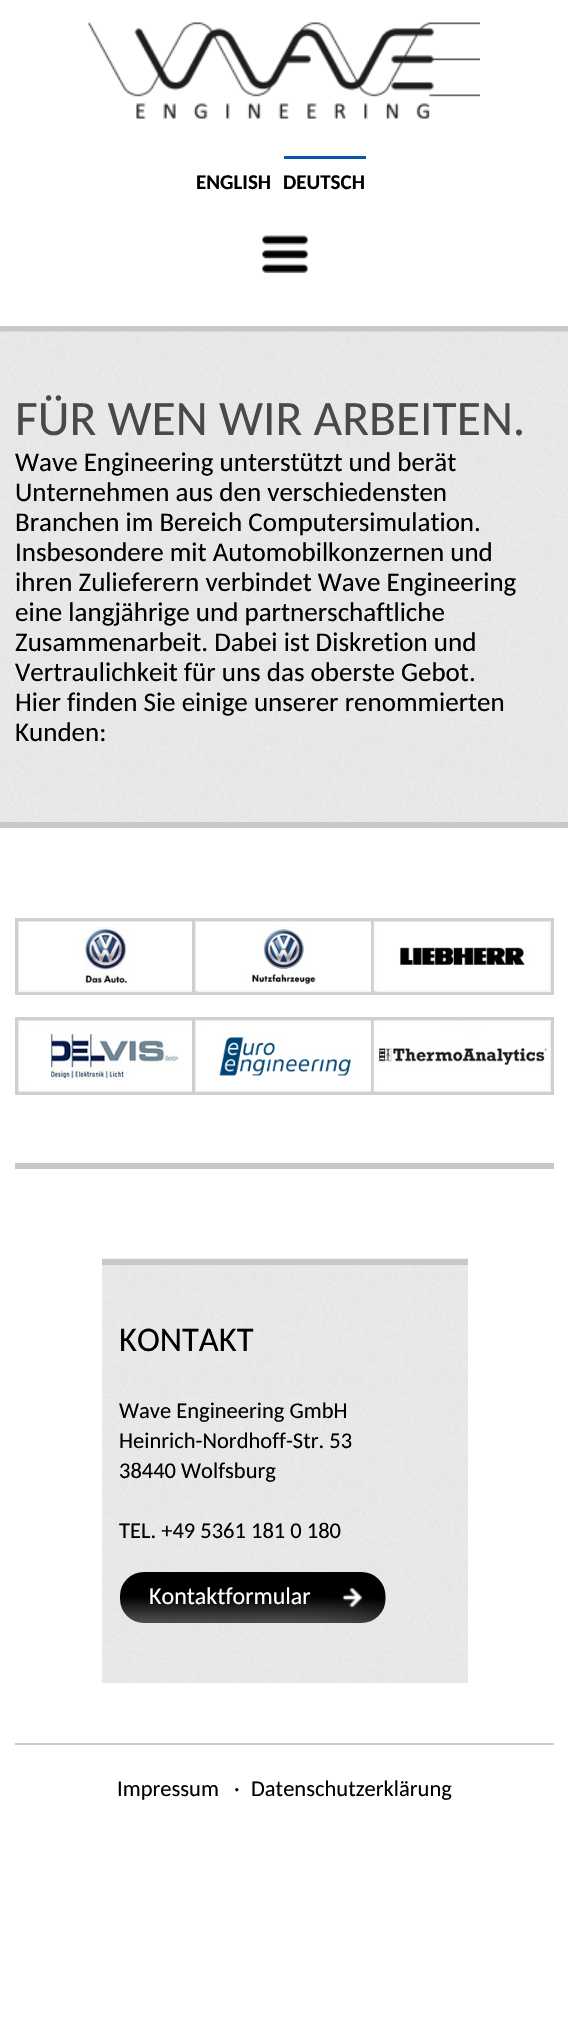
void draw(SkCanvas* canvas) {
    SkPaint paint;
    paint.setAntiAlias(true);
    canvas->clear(0xFFFFFFFF);
    paint.setColor(0xFFC9C8C8);
    canvas->drawRect(SkRect::MakeXYWH(0, 326, 568, 6), paint);
    canvas->drawImageRect(SkImages::DeferredFromEncodedData(SkData::MakeFromFileName("img1.png")), SkRect::MakeXYWH(88, 22, 392, 97), SkSamplingOptions());
    SkFont font1(fontMgr->matchFamilyStyle("Carlito", SkFontStyle::Bold()), 21);
    font1.setSubpixel(true);
    paint.setColor(0xFF000000);
    canvas->drawString("ENGLISH", 196, 189, font1, paint);
    paint.setColor(0xFF0757AB);
    canvas->drawRect(SkRect::MakeXYWH(284, 156, 82, 3), paint);
    paint.setColor(0xFF000000);
    canvas->drawString("DEUTSCH", 283, 189, font1, paint);
    canvas->drawImageRect(SkImages::DeferredFromEncodedData(SkData::MakeFromFileName("img2.png")), SkRect::MakeXYWH(262, 235, 46, 38), SkSamplingOptions());
    canvas->drawImageRect(SkImages::DeferredFromEncodedData(SkData::MakeFromFileName("img3.png")), SkRect::MakeXYWH(0, 331, 568, 491), SkSamplingOptions());
    paint.setColor(0xFFC9C8C8);
    canvas->drawRect(SkRect::MakeXYWH(0, 822, 568, 6), paint);
    SkFont font2(fontMgr->matchFamilyStyle("Carlito", SkFontStyle::Normal()), 49.5f);
    font2.setSubpixel(true);
    paint.setColor(0xFF494949);
    canvas->drawString("FÜR WEN WIR ARBEITEN.", 15, 435, font2, paint);
    SkFont font3(fontMgr->matchFamilyStyle("Carlito", SkFontStyle::Normal()), 27);
    font3.setSubpixel(true);
    paint.setColor(0xFF000000);
    canvas->drawString("Wave Engineering unterstützt und berät", 15, 471, font3, paint);
    canvas->drawString("Unternehmen aus den verschiedensten", 15, 501, font3, paint);
    canvas->drawString("Branchen im Bereich Computersimulation.", 15, 531, font3, paint);
    canvas->drawString("Insbesondere mit Automobilkonzernen und", 15, 561, font3, paint);
    canvas->drawString("ihren Zulieferern verbindet Wave Engineering", 15, 591, font3, paint);
    canvas->drawString("eine langjährige und partnerschaftliche", 15, 621, font3, paint);
    canvas->drawString("Zusammenarbeit. Dabei ist Diskretion und", 15, 651, font3, paint);
    canvas->drawString("Vertraulichkeit für uns das oberste Gebot.", 15, 681, font3, paint);
    canvas->drawString("Hier finden Sie einige unserer renommierten", 15, 711, font3, paint);
    canvas->drawString("Kunden:", 15, 741, font3, paint);
    paint.setStyle(SkPaint::kStroke_Style);
    paint.setStrokeWidth(3);
    paint.setColor(0xFFCFCFCF);
    canvas->drawRect(SkRect::MakeXYWH(16.5f, 919.5f, 180, 74), paint);
    canvas->drawImageRect(SkImages::DeferredFromEncodedData(SkData::MakeFromFileName("img4.png")), SkRect::MakeXYWH(18, 921, 174, 71), SkSamplingOptions());
    canvas->drawRect(SkRect::MakeXYWH(193.5f, 919.5f, 182, 74), paint);
    canvas->drawImageRect(SkImages::DeferredFromEncodedData(SkData::MakeFromFileName("img5.png")), SkRect::MakeXYWH(195, 921, 176, 71), SkSamplingOptions());
    canvas->drawRect(SkRect::MakeXYWH(372.5f, 919.5f, 180, 74), paint);
    canvas->drawImageRect(SkImages::DeferredFromEncodedData(SkData::MakeFromFileName("img6.png")), SkRect::MakeXYWH(373, 921, 178, 71), SkSamplingOptions());
    canvas->drawRect(SkRect::MakeXYWH(16.5f, 1018.5f, 180, 75), paint);
    canvas->drawImageRect(SkImages::DeferredFromEncodedData(SkData::MakeFromFileName("img7.png")), SkRect::MakeXYWH(18, 1020, 174, 72), SkSamplingOptions());
    canvas->drawRect(SkRect::MakeXYWH(193.5f, 1018.5f, 182, 75), paint);
    canvas->drawImageRect(SkImages::DeferredFromEncodedData(SkData::MakeFromFileName("img8.png")), SkRect::MakeXYWH(195, 1020, 176, 72), SkSamplingOptions());
    canvas->drawRect(SkRect::MakeXYWH(372.5f, 1018.5f, 180, 75), paint);
    canvas->drawImageRect(SkImages::DeferredFromEncodedData(SkData::MakeFromFileName("img9.png")), SkRect::MakeXYWH(373, 1020, 178, 72), SkSamplingOptions());
    paint.setStyle(SkPaint::kFill_Style);
    paint.setColor(0xFFC9C8C8);
    canvas->drawRect(SkRect::MakeXYWH(15, 1163, 539, 6), paint);
    canvas->drawImageRect(SkImages::DeferredFromEncodedData(SkData::MakeFromFileName("img10.png")), SkRect::MakeXYWH(102, 1258, 366, 425), SkSamplingOptions());
    canvas->drawRect(SkRect::MakeXYWH(102, 1259, 366, 6), paint);
    SkFont font4(fontMgr->matchFamilyStyle("Carlito", SkFontStyle::Normal()), 34.5f);
    font4.setSubpixel(true);
    paint.setColor(0xFF000000);
    canvas->drawString("KONTAKT", 119, 1351, font4, paint);
    SkFont font5(fontMgr->matchFamilyStyle("Carlito", SkFontStyle::Normal()), 22.5f);
    font5.setSubpixel(true);
    canvas->drawString("Wave Engineering GmbH", 119, 1418, font5, paint);
    canvas->drawString("Heinrich-Nordhoff-Str. 53", 119, 1448, font5, paint);
    canvas->drawString("38440 Wolfsburg", 119, 1478, font5, paint);
    canvas->drawString("TEL. +49 5361 181 0 180", 119, 1538, font5, paint);
    canvas->drawImageRect(SkImages::DeferredFromEncodedData(SkData::MakeFromFileName("img11.png")), SkRect::MakeXYWH(120, 1572, 266, 51), SkSamplingOptions());
    SkFont font6(fontMgr->matchFamilyStyle("Carlito", SkFontStyle::Normal()), 24);
    font6.setSubpixel(true);
    paint.setColor(0xFFFFFFFF);
    canvas->drawString("Kontaktformular", 149, 1604, font6, paint);
    paint.setColor(0xFFCCCCCC);
    canvas->drawRect(SkRect::MakeXYWH(15, 1743, 539, 2), paint);
    paint.setColor(0xFF000000);
    canvas->drawString("Impressum", 117, 1796, font5, paint);
    canvas->drawString("·", 234, 1796, font5, paint);
    canvas->drawString("Datenschutzerklärung", 251, 1796, font5, paint);
}
